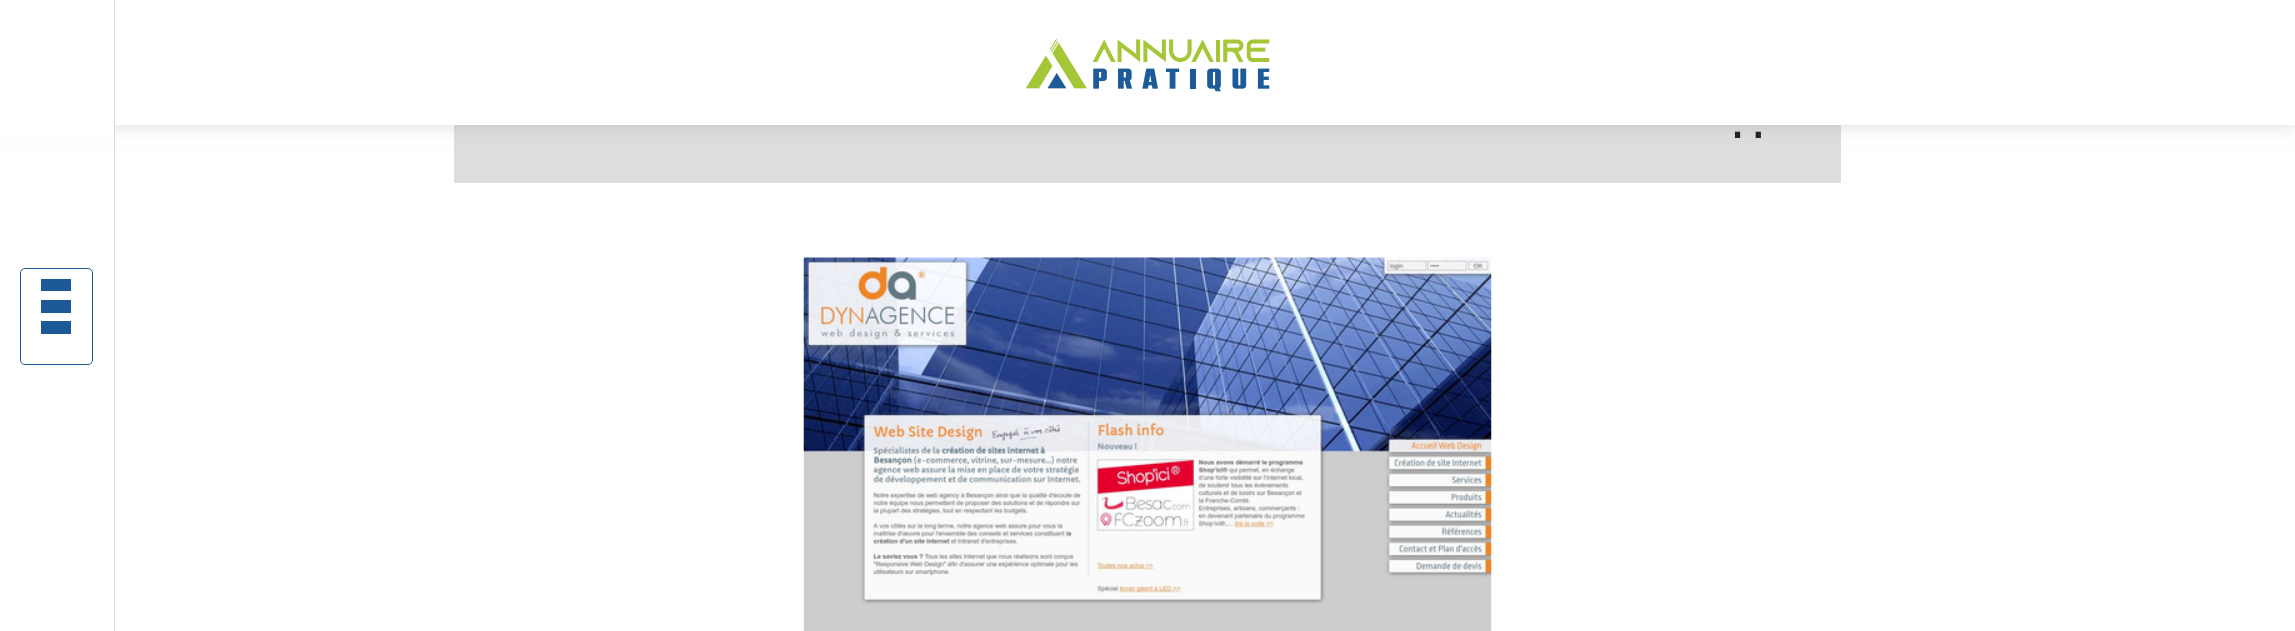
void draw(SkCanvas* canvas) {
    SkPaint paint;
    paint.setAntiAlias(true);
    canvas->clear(0xFFFFFFFF);
    paint.setColor(0xFFDEDEDE);
    canvas->drawRect(SkRect::MakeXYWH(454, 125, 1387, 58), paint);
    paint.setColor(0x1A000000);
    paint.setMaskFilter(SkMaskFilter::MakeBlur(kNormal_SkBlurStyle, 8));
    canvas->drawRect(SkRect::MakeXYWH(0, 3, 2295, 125), paint);
    paint.setMaskFilter(nullptr);
    SkFont font1(fontMgr->matchFamilyStyle("DejaVu Sans", SkFontStyle::Normal()), 50);
    font1.setSubpixel(true);
    paint.setColor(0xFF212529);
    canvas->drawString("∴", 1732, 143, font1, paint);
    paint.setColor(0xFFFFFFFF);
    canvas->drawRect(SkRect::MakeXYWH(115, 0, 2180, 125), paint);
    canvas->drawRect(SkRect::MakeXYWH(0, 0, 114, 138), paint);
    paint.setColor(0xFFDDDDDD);
    canvas->drawRect(SkRect::MakeXYWH(114, 0, 1, 631), paint);
    paint.setStyle(SkPaint::kStroke_Style);
    paint.setStrokeWidth(1);
    paint.setColor(0xFF1D5997);
    canvas->drawRoundRect(SkRect::MakeXYWH(20.5f, 268.5f, 72, 96), 4.5f, 4.5f, paint);
    paint.setStyle(SkPaint::kFill_Style);
    canvas->drawRect(SkRect::MakeXYWH(41, 279, 30, 12), paint);
    canvas->drawRect(SkRect::MakeXYWH(41, 300, 30, 13), paint);
    canvas->drawRect(SkRect::MakeXYWH(41, 321, 30, 13), paint);
    canvas->drawImageRect(SkImages::DeferredFromEncodedData(SkData::MakeFromFileName("img1.png")), SkRect::MakeXYWH(1025, 38, 245, 54), SkSamplingOptions());
    canvas->drawImageRect(SkImages::DeferredFromEncodedData(SkData::MakeFromFileName("img2.png")), SkRect::MakeXYWH(803, 257, 689, 374), SkSamplingOptions());
}
